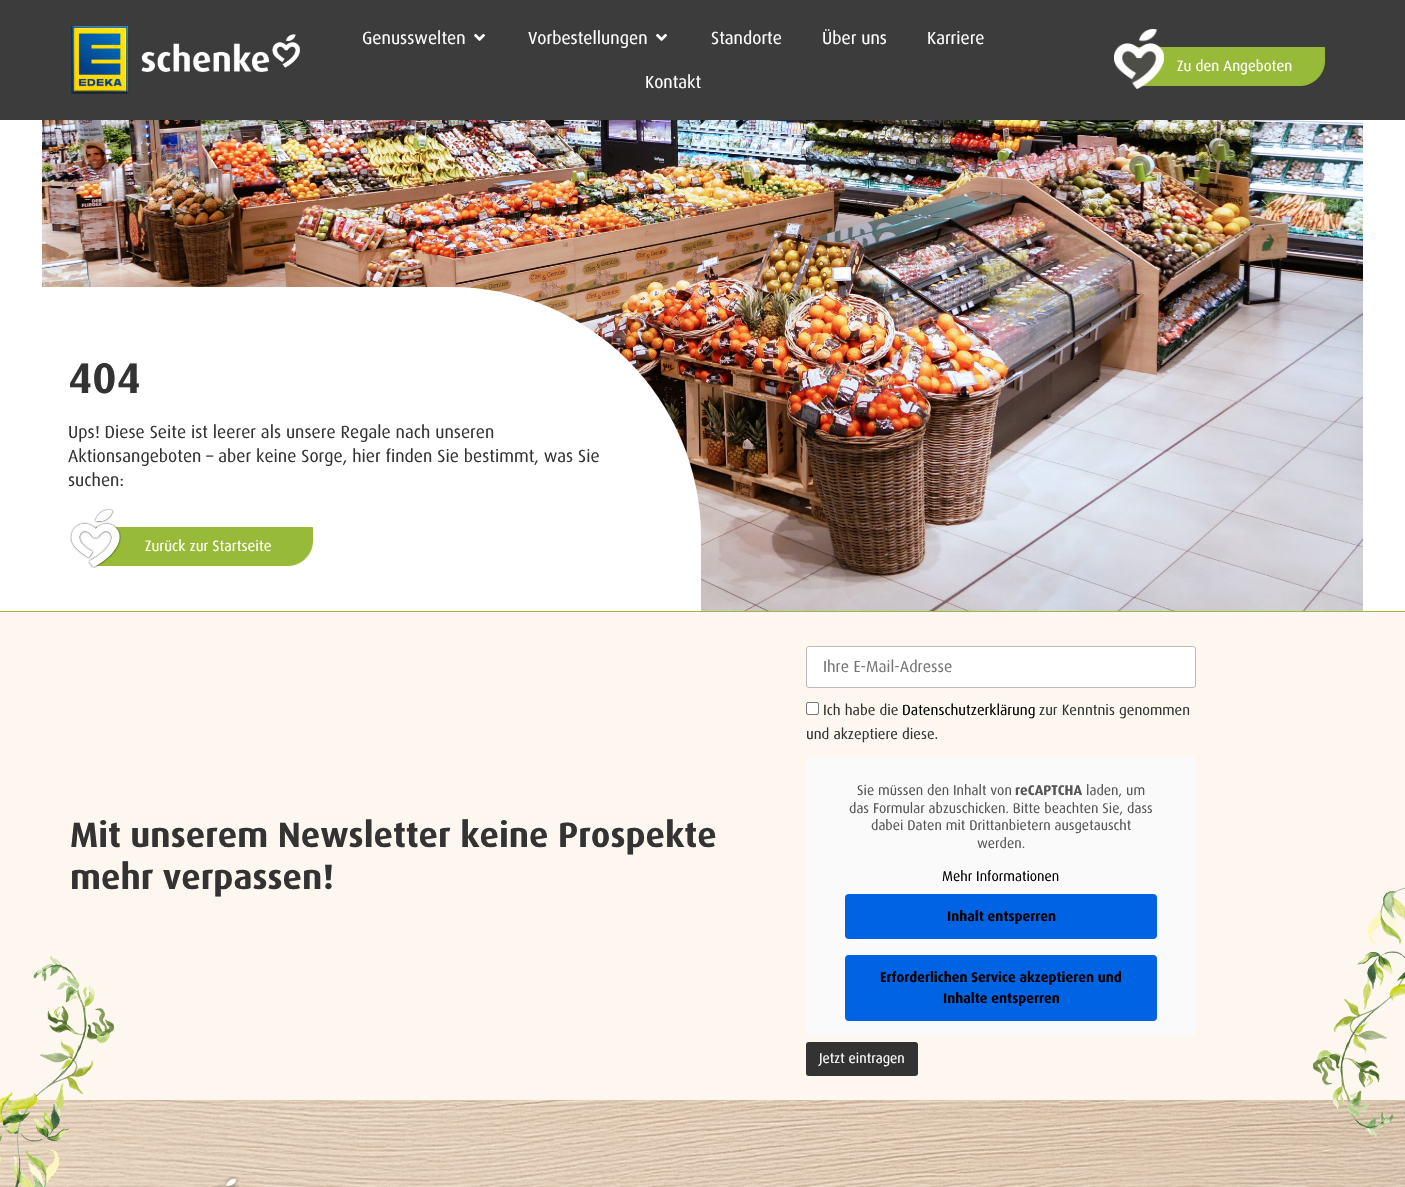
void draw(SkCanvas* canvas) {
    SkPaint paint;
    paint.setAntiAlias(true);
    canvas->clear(0xFFFFFFFF);
    paint.setColor(0xFF3C3C3C);
    canvas->drawRect(SkRect::MakeXYWH(0, 0, 1405, 120), paint);
    canvas->drawImageRect(SkImages::DeferredFromEncodedData(SkData::MakeFromFileName("img1.png")), SkRect::MakeXYWH(71, 26, 58, 68), SkSamplingOptions());
    canvas->drawImageRect(SkImages::DeferredFromEncodedData(SkData::MakeFromFileName("img2.png")), SkRect::MakeXYWH(141, 34, 159, 38), SkSamplingOptions());
    SkFont font1(fontMgr->matchFamilyStyle("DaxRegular", SkFontStyle::Normal()), 17.6f);
    font1.setSubpixel(true);
    paint.setColor(0xFFFFFFFF);
    canvas->drawString("Genusswelten", 362, 44, font1, paint);
    canvas->drawImageRect(SkImages::DeferredFromEncodedData(SkData::MakeFromFileName("img3.png")), SkRect::MakeXYWH(474, 33, 11, 8), SkSamplingOptions());
    canvas->drawString("Vorbestellungen", 528, 44, font1, paint);
    canvas->drawImageRect(SkImages::DeferredFromEncodedData(SkData::MakeFromFileName("img3.png")), SkRect::MakeXYWH(656, 33, 11, 8), SkSamplingOptions());
    canvas->drawString("Standorte", 711, 44, font1, paint);
    canvas->drawString("Über uns", 822, 44, font1, paint);
    canvas->drawString("Karriere", 927, 44, font1, paint);
    canvas->drawString("Kontakt", 645, 88, font1, paint);
    paint.setColor(0xFF97BB38);
    canvas->drawPath(SkPathBuilder().moveTo(1136.5f, 47.5f).lineTo(1324.5f, 47.5f).lineTo(1324.5f, 61).cubicTo(1324.5f, 74.5f, 1313.5f, 85.5f, 1300, 85.5f).lineTo(1136.5f, 85.5f).close().detach(), paint);
    paint.setStyle(SkPaint::kStroke_Style);
    paint.setStrokeWidth(1);
    canvas->drawPath(SkPathBuilder().moveTo(1136.5f, 47.5f).lineTo(1324.5f, 47.5f).lineTo(1324.5f, 61).cubicTo(1324.5f, 74.5f, 1313.5f, 85.5f, 1300, 85.5f).lineTo(1136.5f, 85.5f).close().detach(), paint);
    canvas->drawImageRect(SkImages::DeferredFromEncodedData(SkData::MakeFromFileName("img4.png")), SkRect::MakeXYWH(1114, 29, 50, 60), SkSamplingOptions());
    SkFont font2(fontMgr->matchFamilyStyle("DaxRegular", SkFontStyle::Normal()), 15);
    font2.setSubpixel(true);
    paint.setStyle(SkPaint::kFill_Style);
    paint.setColor(0xFFFFFFFF);
    canvas->drawString("Zu den Angeboten", 1177, 71, font2, paint);
    canvas->drawImageRect(SkImages::DeferredFromEncodedData(SkData::MakeFromFileName("img5.png")), SkRect::MakeXYWH(42, 120, 1321, 491), SkSamplingOptions());
    canvas->drawPath(SkPathBuilder().moveTo(40, 287).lineTo(451, 287).cubicTo(589, 287, 701, 399, 701, 537).lineTo(701, 613).lineTo(40, 613).close().detach(), paint);
    SkFont font3(fontMgr->matchFamilyStyle("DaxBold", SkFontStyle::Bold()), 43);
    font3.setSubpixel(true);
    paint.setColor(0xFF333333);
    canvas->drawString("404", 68, 393, font3, paint);
    canvas->drawString("Ups! Diese Seite ist leerer als unsere Regale nach unseren", 68, 438, font1, paint);
    canvas->drawString("Aktionsangeboten – aber keine Sorge, hier finden Sie bestimmt, was Sie", 68, 462, font1, paint);
    canvas->drawString("suchen:", 68, 486, font1, paint);
    paint.setColor(0xFF97BB38);
    canvas->drawPath(SkPathBuilder().moveTo(96.5f, 527.5f).lineTo(312.5f, 527.5f).lineTo(312.5f, 541).cubicTo(312.5f, 554.5f, 301.5f, 565.5f, 288, 565.5f).lineTo(96.5f, 565.5f).close().detach(), paint);
    paint.setStyle(SkPaint::kStroke_Style);
    canvas->drawPath(SkPathBuilder().moveTo(96.5f, 527.5f).lineTo(312.5f, 527.5f).lineTo(312.5f, 541).cubicTo(312.5f, 554.5f, 301.5f, 565.5f, 288, 565.5f).lineTo(96.5f, 565.5f).close().detach(), paint);
    canvas->drawImageRect(SkImages::DeferredFromEncodedData(SkData::MakeFromFileName("img6.png")), SkRect::MakeXYWH(70, 508, 52, 61), SkSamplingOptions());
    paint.setStyle(SkPaint::kFill_Style);
    paint.setColor(0xFFFFFFFF);
    canvas->drawString("Zurück zur Startseite", 145, 551, font2, paint);
    paint.setColor(0xFFFEF7EF);
    canvas->drawRect(SkRect::MakeXYWH(0, 612, 1405, 488), paint);
    paint.setColor(0xFF97BB38);
    canvas->drawRect(SkRect::MakeXYWH(0, 611, 1405, 1), paint);
    SkFont font4(fontMgr->matchFamilyStyle("DaxBold", SkFontStyle::Bold()), 35.25f);
    font4.setSubpixel(true);
    paint.setColor(0xFF333333);
    canvas->drawString("Mit unserem Newsletter keine Prospekte", 70, 847, font4, paint);
    canvas->drawString("mehr verpassen!", 70, 889, font4, paint);
    paint.setColor(0xFFFFFFFF);
    canvas->drawRoundRect(SkRect::MakeXYWH(806.5f, 646.5f, 389, 41), 2.5f, 2.5f, paint);
    paint.setStyle(SkPaint::kStroke_Style);
    paint.setColor(0xFFBBBBBB);
    canvas->drawRoundRect(SkRect::MakeXYWH(806.5f, 646.5f, 389, 41), 2.5f, 2.5f, paint);
    SkFont font5(fontMgr->matchFamilyStyle("DaxRegular", SkFontStyle::Normal()), 16);
    font5.setSubpixel(true);
    paint.setStyle(SkPaint::kFill_Style);
    paint.setColor(0xFF757575);
    canvas->drawString("Ihre E-Mail-Adresse", 823, 672, font5, paint);
    paint.setColor(0xFFFFFFFF);
    canvas->drawRoundRect(SkRect::MakeXYWH(806.5f, 702.5f, 12, 12), 1.5f, 1.5f, paint);
    paint.setStyle(SkPaint::kStroke_Style);
    paint.setColor(0xFF767676);
    canvas->drawRoundRect(SkRect::MakeXYWH(806.5f, 702.5f, 12, 12), 1.5f, 1.5f, paint);
    SkFont font6(fontMgr->matchFamilyStyle("DaxRegular", SkFontStyle::Normal()), 14.75f);
    font6.setSubpixel(true);
    paint.setStyle(SkPaint::kFill_Style);
    paint.setColor(0xFF333333);
    canvas->drawString("Ich habe die", 823, 715, font6, paint);
    paint.setColor(0xFF000000);
    canvas->drawString("Datenschutzerklärung", 902, 715, font6, paint);
    paint.setColor(0xFF333333);
    canvas->drawString("zur Kenntnis genommen", 1039, 715, font6, paint);
    canvas->drawString("und akzeptiere diese.", 806, 739, font6, paint);
    paint.setColor(0xFFFAFAFA);
    canvas->drawRoundRect(SkRect::MakeXYWH(806, 756, 390, 281), 4, 4, paint);
    SkFont font7(fontMgr->matchFamilyStyle("DaxRegular", SkFontStyle::Normal()), 14);
    font7.setSubpixel(true);
    paint.setColor(0xFF555555);
    canvas->drawString("Sie müssen den Inhalt von", 857, 795, font7, paint);
    SkFont font8(fontMgr->matchFamilyStyle("DaxBold", SkFontStyle::Bold()), 14);
    font8.setSubpixel(true);
    canvas->drawString("reCAPTCHA", 1015, 795, font8, paint);
    canvas->drawString("laden, um", 1086, 795, font7, paint);
    canvas->drawString("das Formular abzuschicken. Bitte beachten Sie, dass", 849, 813, font7, paint);
    canvas->drawString("dabei Daten mit Drittanbietern ausgetauscht", 871, 830, font7, paint);
    canvas->drawString("werden.", 977, 848, font7, paint);
    paint.setColor(0xFF000000);
    canvas->drawString("Mehr Informationen", 942, 881, font7, paint);
    paint.setColor(0xFF0063E3);
    canvas->drawRoundRect(SkRect::MakeXYWH(845, 894, 312, 45), 4, 4, paint);
    paint.setColor(0xFF000000);
    canvas->drawString("Inhalt entsperren", 947, 921, font8, paint);
    paint.setColor(0xFF0063E3);
    canvas->drawRoundRect(SkRect::MakeXYWH(845, 955, 312, 66), 4, 4, paint);
    paint.setColor(0xFF000000);
    canvas->drawString("Erforderlichen Service akzeptieren und", 880, 982, font8, paint);
    canvas->drawString("Inhalte entsperren", 943, 1003, font8, paint);
    paint.setColor(0xFF333333);
    canvas->drawRoundRect(SkRect::MakeXYWH(806, 1042, 112, 34), 3, 3, paint);
    paint.setColor(0xFFFFFFFF);
    canvas->drawString("Jetzt eintragen", 819, 1063, font7, paint);
    canvas->drawImageRect(SkImages::DeferredFromEncodedData(SkData::MakeFromFileName("img7.png")), SkRect::MakeXYWH(0, 1100, 1405, 87), SkSamplingOptions());
    canvas->drawImageRect(SkImages::DeferredFromEncodedData(SkData::MakeFromFileName("img8.png")), SkRect::MakeXYWH(0, 956, 115, 231), SkSamplingOptions());
    canvas->drawImageRect(SkImages::DeferredFromEncodedData(SkData::MakeFromFileName("img9.png")), SkRect::MakeXYWH(103, 1176, 137, 11), SkSamplingOptions());
    canvas->drawImageRect(SkImages::DeferredFromEncodedData(SkData::MakeFromFileName("img10.png")), SkRect::MakeXYWH(1312, 887, 93, 250), SkSamplingOptions());
}
